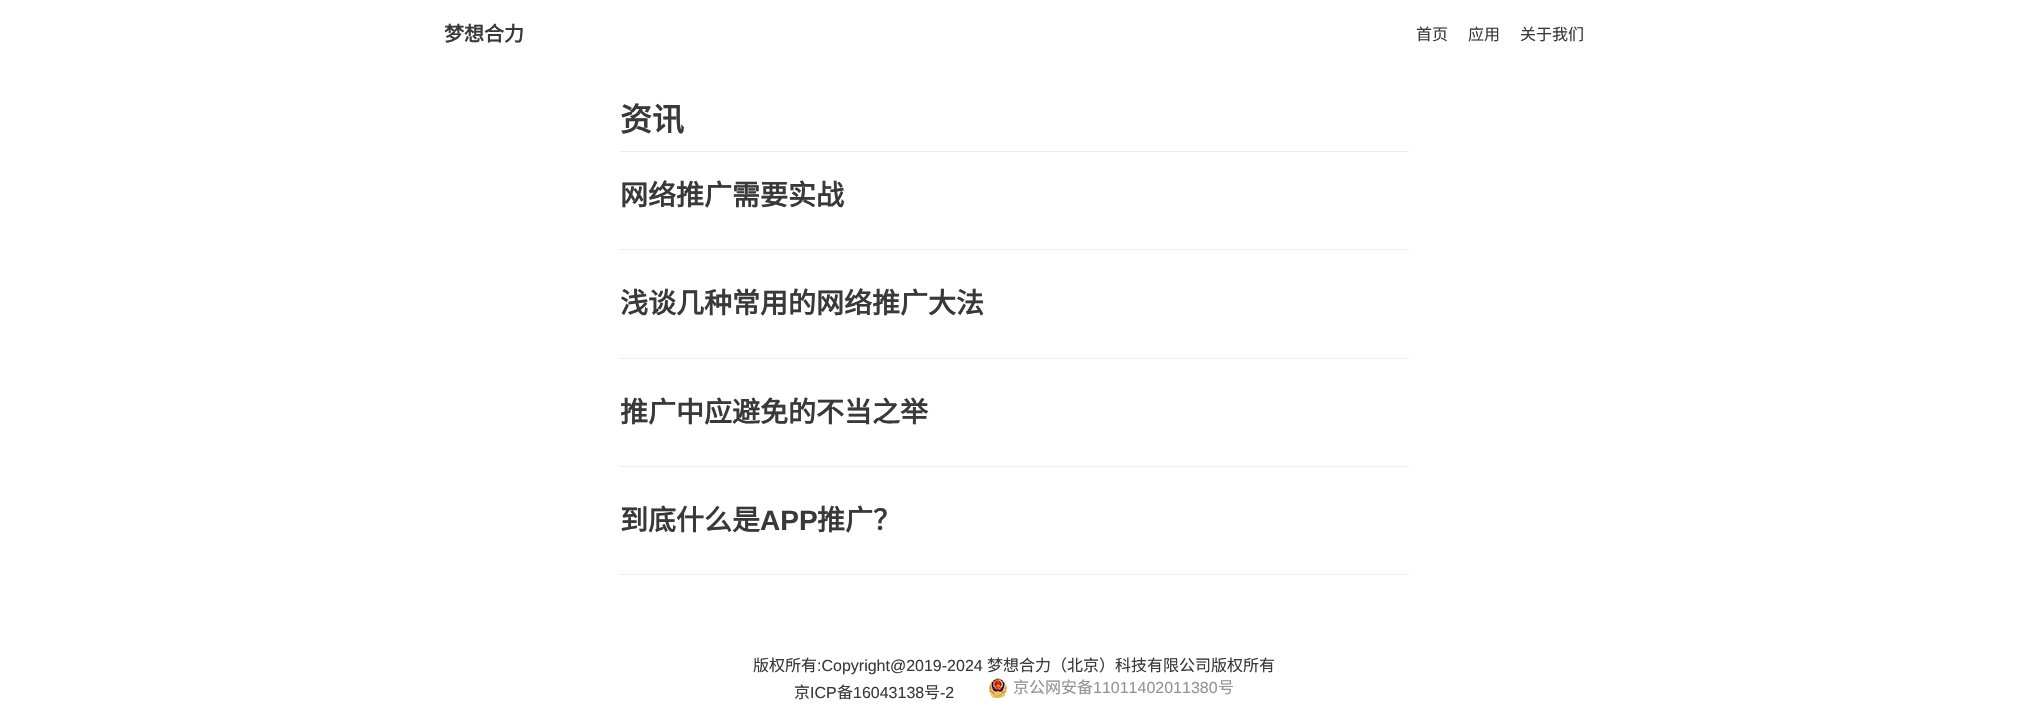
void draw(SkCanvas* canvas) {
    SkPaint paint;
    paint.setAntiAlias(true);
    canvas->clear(0xFFFFFFFF);
    SkFont font1(fontMgr->matchFamilyStyle("Noto Sans CJK SC", SkFontStyle::Bold()), 20);
    font1.setSubpixel(true);
    paint.setColor(0xFF393939);
    canvas->drawString("梦想合力", 444, 41, font1, paint);
    SkFont font2(fontMgr->matchFamilyStyle("Noto Sans CJK SC", SkFontStyle::Normal()), 16);
    font2.setSubpixel(true);
    canvas->drawString("首页", 1416, 40, font2, paint);
    canvas->drawString("应用", 1468, 40, font2, paint);
    canvas->drawString("关于我们", 1520, 40, font2, paint);
    paint.setColor(0xFFEDEDED);
    canvas->drawRect(SkRect::MakeXYWH(620, 151, 789, 1), paint);
    SkFont font3(fontMgr->matchFamilyStyle("Noto Sans CJK SC", SkFontStyle::Bold()), 32);
    font3.setSubpixel(true);
    paint.setColor(0xFF393939);
    canvas->drawString("资讯", 620, 131, font3, paint);
    paint.setColor(0xFFEDEDED);
    canvas->drawRect(SkRect::MakeXYWH(620, 249, 789, 1), paint);
    SkFont font4(fontMgr->matchFamilyStyle("Noto Sans CJK SC", SkFontStyle::Bold()), 28);
    font4.setSubpixel(true);
    paint.setColor(0xFF393939);
    canvas->drawString("网络推广需要实战", 620, 205, font4, paint);
    paint.setColor(0xFFEDEDED);
    canvas->drawRect(SkRect::MakeXYWH(620, 358, 789, 1), paint);
    paint.setColor(0xFF393939);
    canvas->drawString("浅谈几种常用的网络推广大法", 620, 313, font4, paint);
    paint.setColor(0xFFEDEDED);
    canvas->drawRect(SkRect::MakeXYWH(620, 466, 789, 1), paint);
    paint.setColor(0xFF393939);
    canvas->drawString("推广中应避免的不当之举", 620, 422, font4, paint);
    paint.setColor(0xFFEDEDED);
    canvas->drawRect(SkRect::MakeXYWH(620, 574, 789, 1), paint);
    paint.setColor(0xFF393939);
    canvas->drawString("到底什么是", 620, 530, font4, paint);
    SkFont font5(fontMgr->matchFamilyStyle("Liberation Sans", SkFontStyle::Bold()), 28);
    font5.setSubpixel(true);
    canvas->drawString("APP", 760, 530, font5, paint);
    canvas->drawString("推广？", 817, 530, font4, paint);
    canvas->drawString("版权所有", 753, 671, font2, paint);
    SkFont font6(fontMgr->matchFamilyStyle("Liberation Sans", SkFontStyle::Normal()), 16);
    font6.setSubpixel(true);
    canvas->drawString(":Copyright@2019-2024", 817, 671, font6, paint);
    canvas->drawString("梦想合力（北京）科技有限公司版权所有", 987, 671, font2, paint);
    canvas->drawString("京", 794, 698, font2, paint);
    canvas->drawString("ICP", 810, 698, font6, paint);
    canvas->drawString("备", 837, 698, font2, paint);
    canvas->drawString("16043138", 853, 698, font6, paint);
    canvas->drawString("号", 924, 698, font2, paint);
    canvas->drawString("-2", 940, 698, font6, paint);
    canvas->drawImageRect(SkImages::DeferredFromEncodedData(SkData::MakeFromFileName("img1.png")), SkRect::MakeXYWH(989, 678, 18, 20), SkSamplingOptions());
    paint.setColor(0xFF939393);
    canvas->drawString("京公网安备", 1013, 693, font2, paint);
    canvas->drawString("11011402011380", 1093, 693, font6, paint);
    canvas->drawString("号", 1218, 693, font2, paint);
}
